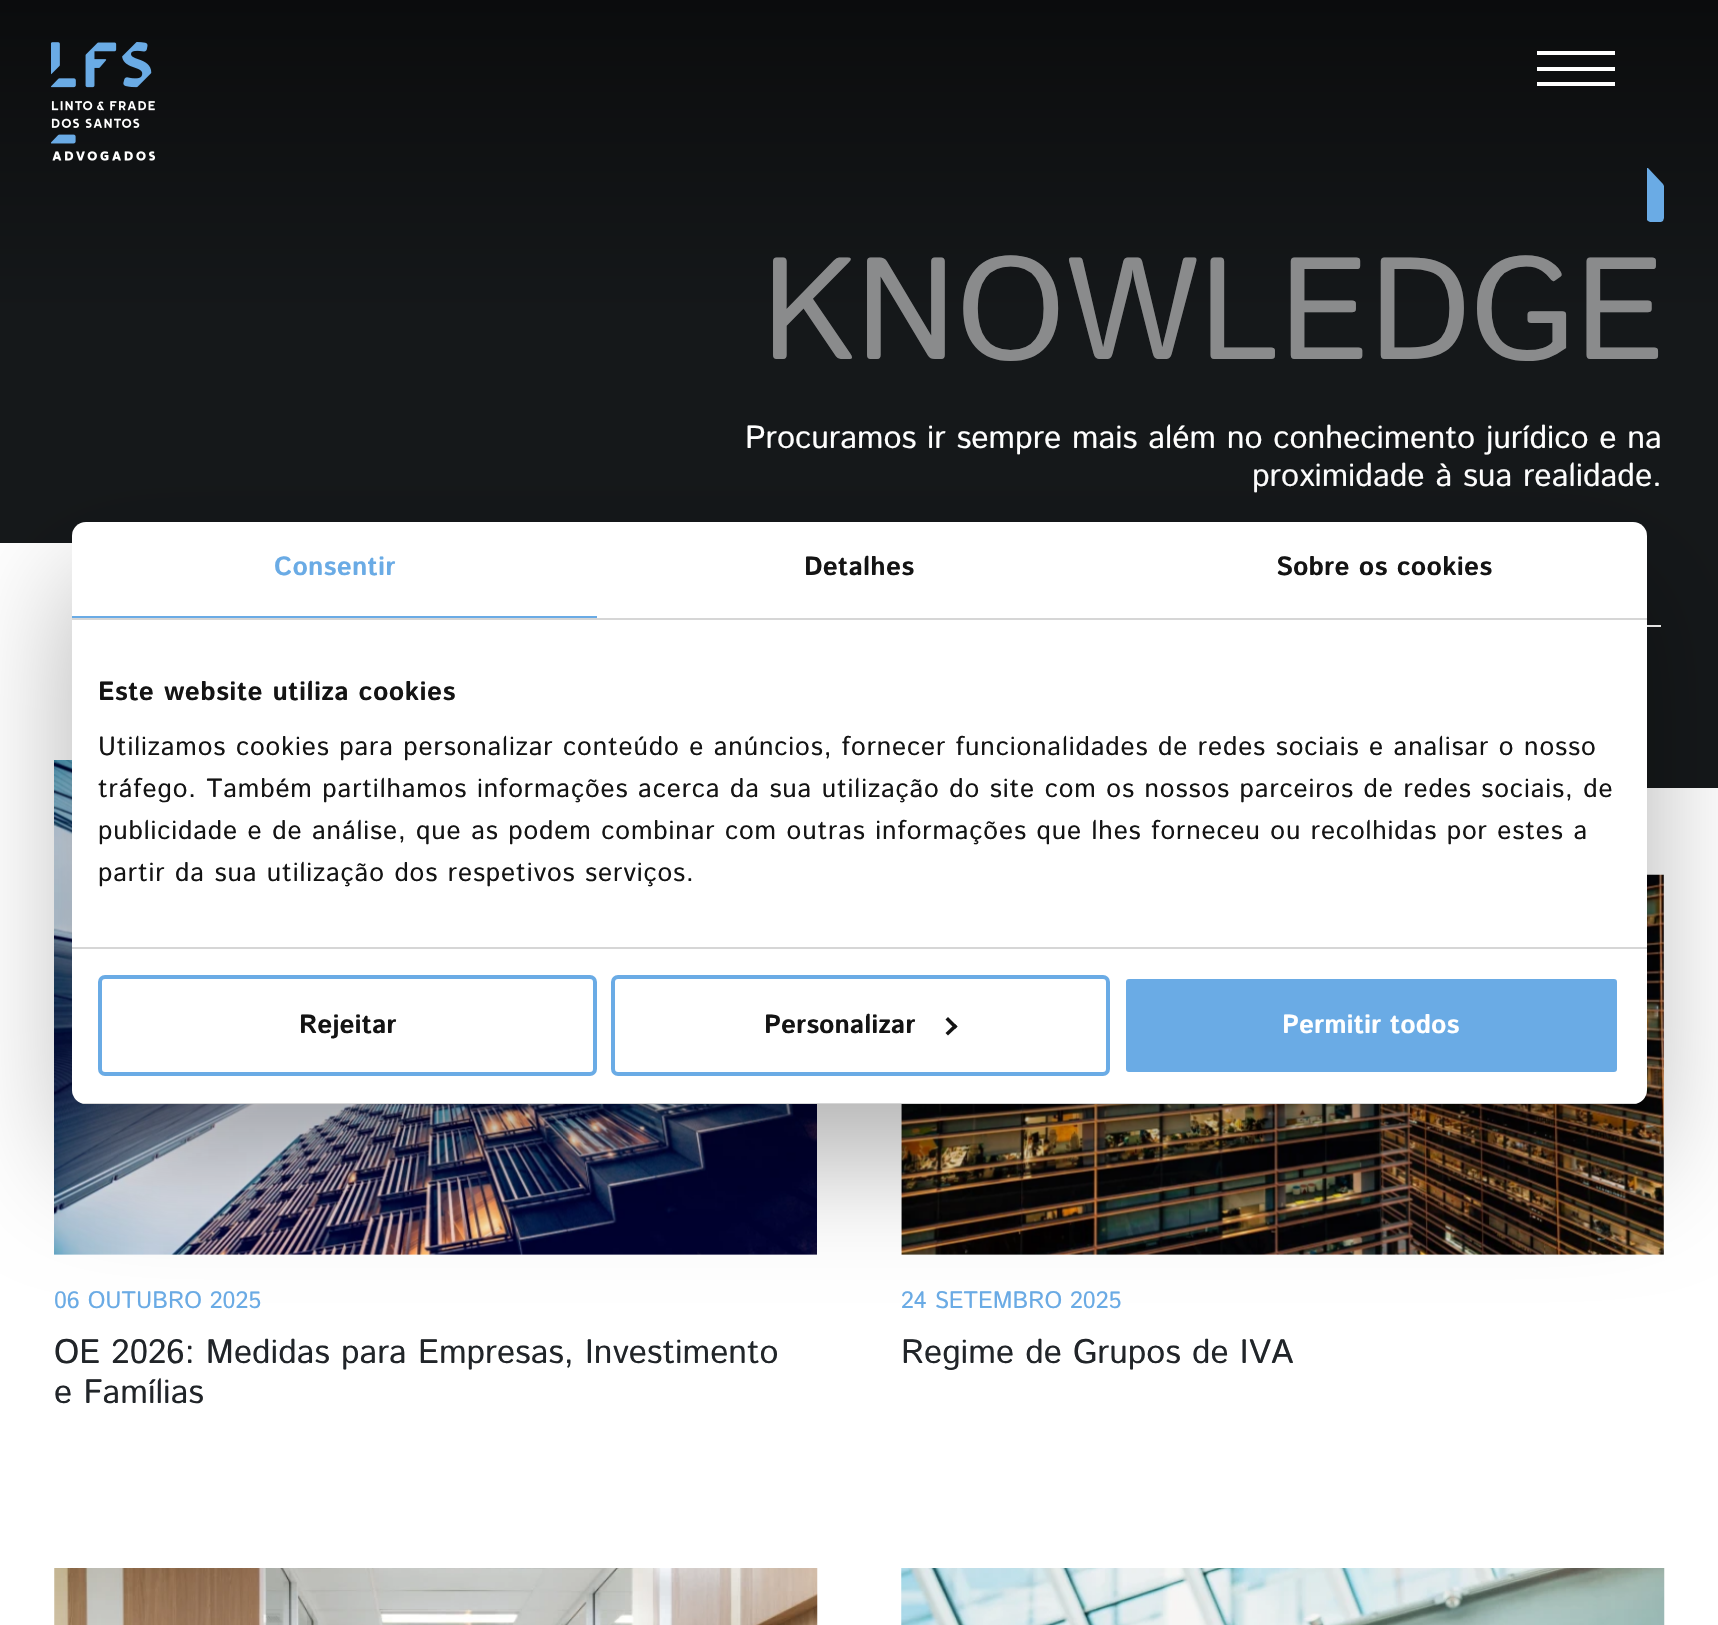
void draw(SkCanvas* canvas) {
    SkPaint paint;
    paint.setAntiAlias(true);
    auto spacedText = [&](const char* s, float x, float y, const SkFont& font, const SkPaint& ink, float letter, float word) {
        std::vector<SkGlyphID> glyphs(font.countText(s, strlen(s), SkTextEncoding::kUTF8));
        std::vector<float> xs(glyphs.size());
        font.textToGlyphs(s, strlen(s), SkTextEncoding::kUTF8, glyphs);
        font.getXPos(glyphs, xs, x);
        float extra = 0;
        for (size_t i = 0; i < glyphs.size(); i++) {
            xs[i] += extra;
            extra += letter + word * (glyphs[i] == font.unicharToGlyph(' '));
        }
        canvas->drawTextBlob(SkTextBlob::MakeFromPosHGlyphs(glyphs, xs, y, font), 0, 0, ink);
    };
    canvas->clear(0xFFFFFFFF);
    {
        const SkColor colors[] = {0xFF0B0C0D, 0xFF15181A};
        const float stops[] = {0, 1};
        const SkPoint ends[] = {{859, 0}, {859, 315}};
        paint.setShader(SkGradientShader::MakeLinear(ends, colors, stops, 2, SkTileMode::kClamp));
        paint.setAlpha(255);
    }
    canvas->drawRect(SkRect::MakeXYWH(0, 0, 1718, 315), paint);
    canvas->drawImageRect(SkImages::DeferredFromEncodedData(SkData::MakeFromFileName("img1.png")), SkRect::MakeXYWH(51, 42, 105, 119), SkSamplingOptions());
    paint.setShader(nullptr);
    paint.setColor(0xFFFFFFFF);
    canvas->drawRect(SkRect::MakeXYWH(1537, 51, 78, 4), paint);
    canvas->drawRect(SkRect::MakeXYWH(1537, 67, 78, 4), paint);
    canvas->drawRect(SkRect::MakeXYWH(1537, 82, 78, 4), paint);
    paint.setColor(0xFF6AABE5);
    canvas->drawPath(SkPathBuilder().moveTo(1647, 168).lineTo(1647, 220).lineTo(1648, 221).lineTo(1650, 222).lineTo(1661, 222).lineTo(1663, 221).lineTo(1664, 218).lineTo(1664, 186).lineTo(1663, 184).lineTo(1648, 168).close().detach(), paint);
    paint.setColor(0xFF15181A);
    canvas->drawRect(SkRect::MakeXYWH(0, 315, 1718, 473), paint);
    SkFont font1(fontMgr->matchFamilyStyle("Istok Web", SkFontStyle::Normal()), 145);
    font1.setSubpixel(true);
    paint.setColor(0xFF8A8B8C);
    canvas->drawString("KNOWLEDGE", 761, 359, font1, paint);
    SkFont font2(fontMgr->matchFamilyStyle("Istok Web", SkFontStyle::Normal()), 32.25f);
    font2.setSubpixel(true);
    paint.setColor(0xFFFFFFFF);
    canvas->drawString("Procuramos ir sempre mais além no conhecimento jurídico e na", 745, 448, font2, paint);
    canvas->drawString("proximidade à sua realidade.", 1252, 486, font2, paint);
    canvas->save();
    canvas->clipRect(SkRect::MakeXYWH(0, 543, 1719, 281));
    canvas->drawPath(SkPathBuilder(SkPathFillType::kEvenOdd).moveTo(12, 820).lineTo(-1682, 820).lineTo(-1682, 542).lineTo(165, 542).cubicTo(174, 542, 183, 546, 189, 552).lineTo(321, 674).cubicTo(322, 675, 324, 676, 325, 676).lineTo(1328, 676).cubicTo(1336, 676, 1345, 679, 1351, 685).lineTo(1481, 811).cubicTo(1482, 812, 1484, 812, 1485, 812).lineTo(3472, 812).lineTo(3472, 823).lineTo(1328, 823).cubicTo(889, 821, 450, 820, 12, 820).close().detach(), paint);
    canvas->restore();
    canvas->drawRect(SkRect::MakeXYWH(1647, 625, 14, 2), paint);
    canvas->drawImageRect(SkImages::DeferredFromEncodedData(SkData::MakeFromFileName("img2.png")), SkRect::MakeXYWH(54, 760, 763, 495), SkSamplingOptions());
    SkFont font3(fontMgr->matchFamilyStyle("Istok Web", SkFontStyle::Normal()), 23.75f);
    font3.setSubpixel(true);
    paint.setColor(0xFF6AABE5);
    canvas->drawString("06 OUTUBRO 2025", 54, 1308, font3, paint);
    SkFont font4(fontMgr->matchFamilyStyle("Istok Web", SkFontStyle::Normal()), 33.8f);
    font4.setSubpixel(true);
    paint.setColor(0xFF212529);
    canvas->drawString("OE 2026: Medidas para Empresas, Investimento", 54, 1363, font4, paint);
    canvas->drawString("e Famílias", 54, 1403, font4, paint);
    canvas->drawImageRect(SkImages::DeferredFromEncodedData(SkData::MakeFromFileName("img3.png")), SkRect::MakeXYWH(901, 874, 763, 381), SkSamplingOptions());
    paint.setColor(0xFF6AABE5);
    canvas->drawString("24 SETEMBRO 2025", 901, 1308, font3, paint);
    paint.setColor(0xFF212529);
    canvas->drawString("Regime de Grupos de IVA", 901, 1363, font4, paint);
    canvas->drawImageRect(SkImages::DeferredFromEncodedData(SkData::MakeFromFileName("img4.png")), SkRect::MakeXYWH(54, 1568, 764, 57), SkSamplingOptions());
    canvas->drawImageRect(SkImages::DeferredFromEncodedData(SkData::MakeFromFileName("img5.png")), SkRect::MakeXYWH(901, 1568, 764, 57), SkSamplingOptions());
    paint.setColor(0x4D000000);
    paint.setMaskFilter(SkMaskFilter::MakeBlur(kNormal_SkBlurStyle, 59.5f));
    canvas->drawRoundRect(SkRect::MakeXYWH(72, 578, 1575, 582), 14, 14, paint);
    paint.setMaskFilter(nullptr);
    paint.setColor(0xFFFFFFFF);
    canvas->drawRoundRect(SkRect::MakeXYWH(72, 522, 1575, 582), 14, 14, paint);
    paint.setColor(0xFFD6D6D6);
    canvas->drawRect(SkRect::MakeXYWH(72, 618, 1575, 2), paint);
    paint.setColor(0xFF6AABE5);
    canvas->drawRect(SkRect::MakeXYWH(72, 616, 525, 2), paint);
    SkFont font5(fontMgr->matchFamilyStyle("Istok Web", SkFontStyle::Bold()), 26.25f);
    font5.setSubpixel(true);
    spacedText("Consentir", 274, 575, font5, paint, 0.2f, 0);
    paint.setColor(0xFF141414);
    spacedText("Detalhes", 804, 575, font5, paint, 0.2f, 0);
    spacedText("Sobre os cookies", 1276, 575, font5, paint, 0.2f, 0);
    paint.setColor(0xFFD6D6D6);
    canvas->drawRect(SkRect::MakeXYWH(72, 947, 1575, 2), paint);
    paint.setColor(0xFF141414);
    spacedText("Este website utiliza cookies", 98, 700, font5, paint, 0.45f, 0);
    SkFont font6(fontMgr->matchFamilyStyle("Istok Web", SkFontStyle::Normal()), 26.25f);
    font6.setSubpixel(true);
    spacedText("Utilizamos cookies para personalizar conteúdo e anúncios, fornecer funcionalidades de redes sociais e analisar o nosso", 98, 755, font6, paint, 0.88f, 0);
    spacedText("tráfego. Também partilhamos informações acerca da sua utilização do site com os nossos parceiros de redes sociais, de", 98, 797, font6, paint, 0.88f, 0);
    spacedText("publicidade e de análise, que as podem combinar com outras informações que lhes forneceu ou recolhidas por estes a", 98, 839, font6, paint, 0.88f, 0);
    spacedText("partir da sua utilização dos respetivos serviços.", 98, 881, font6, paint, 0.88f, 0);
    canvas->save();
    canvas->clipPath(SkPathBuilder().moveTo(86, 522).lineTo(1633, 522).cubicTo(1640.5f, 522, 1647, 528.5f, 1647, 536).lineTo(1647, 1090).cubicTo(1647, 1097.5f, 1640.5f, 1104, 1633, 1104).lineTo(86, 1104).cubicTo(78.5f, 1104, 72, 1097.5f, 72, 1090).lineTo(72, 536).cubicTo(72, 528.5f, 78.5f, 522, 86, 522).close().detach(), true);
    paint.setColor(0xFFD6D6D6);
    canvas->drawRect(SkRect::MakeXYWH(81, 1103, 1557, 1), paint);
    canvas->restore();
    paint.setStyle(SkPaint::kStroke_Style);
    paint.setStrokeWidth(4);
    paint.setColor(0xFF6AABE5);
    canvas->drawRoundRect(SkRect::MakeXYWH(100, 977, 495, 97), 5, 5, paint);
    paint.setStyle(SkPaint::kFill_Style);
    paint.setColor(0xFF141414);
    canvas->drawString("Rejeitar", 299, 1033, font5, paint);
    paint.setStyle(SkPaint::kStroke_Style);
    paint.setColor(0xFF6AABE5);
    canvas->drawRoundRect(SkRect::MakeXYWH(613, 977, 495, 97), 5, 5, paint);
    paint.setStyle(SkPaint::kFill_Style);
    paint.setColor(0xFF141414);
    canvas->drawString("Personalizar", 764, 1033, font5, paint);
    canvas->drawPath(SkPathBuilder().moveTo(948, 1017).lineTo(957.5f, 1026.5f).lineTo(955, 1029).lineTo(945.5f, 1019.5f).close().detach(), paint);
    canvas->drawPath(SkPathBuilder().moveTo(955, 1024).lineTo(957.5f, 1026.5f).lineTo(948, 1035.5f).lineTo(945.5f, 1033).close().detach(), paint);
    paint.setColor(0xFF6AABE5);
    canvas->drawRoundRect(SkRect::MakeXYWH(1124, 977, 495, 97), 5, 5, paint);
    paint.setStyle(SkPaint::kStroke_Style);
    paint.setColor(0xFFFFFFFF);
    canvas->drawRoundRect(SkRect::MakeXYWH(1124, 977, 495, 97), 5, 5, paint);
    paint.setStyle(SkPaint::kFill_Style);
    canvas->drawString("Permitir todos", 1282, 1033, font5, paint);
}
